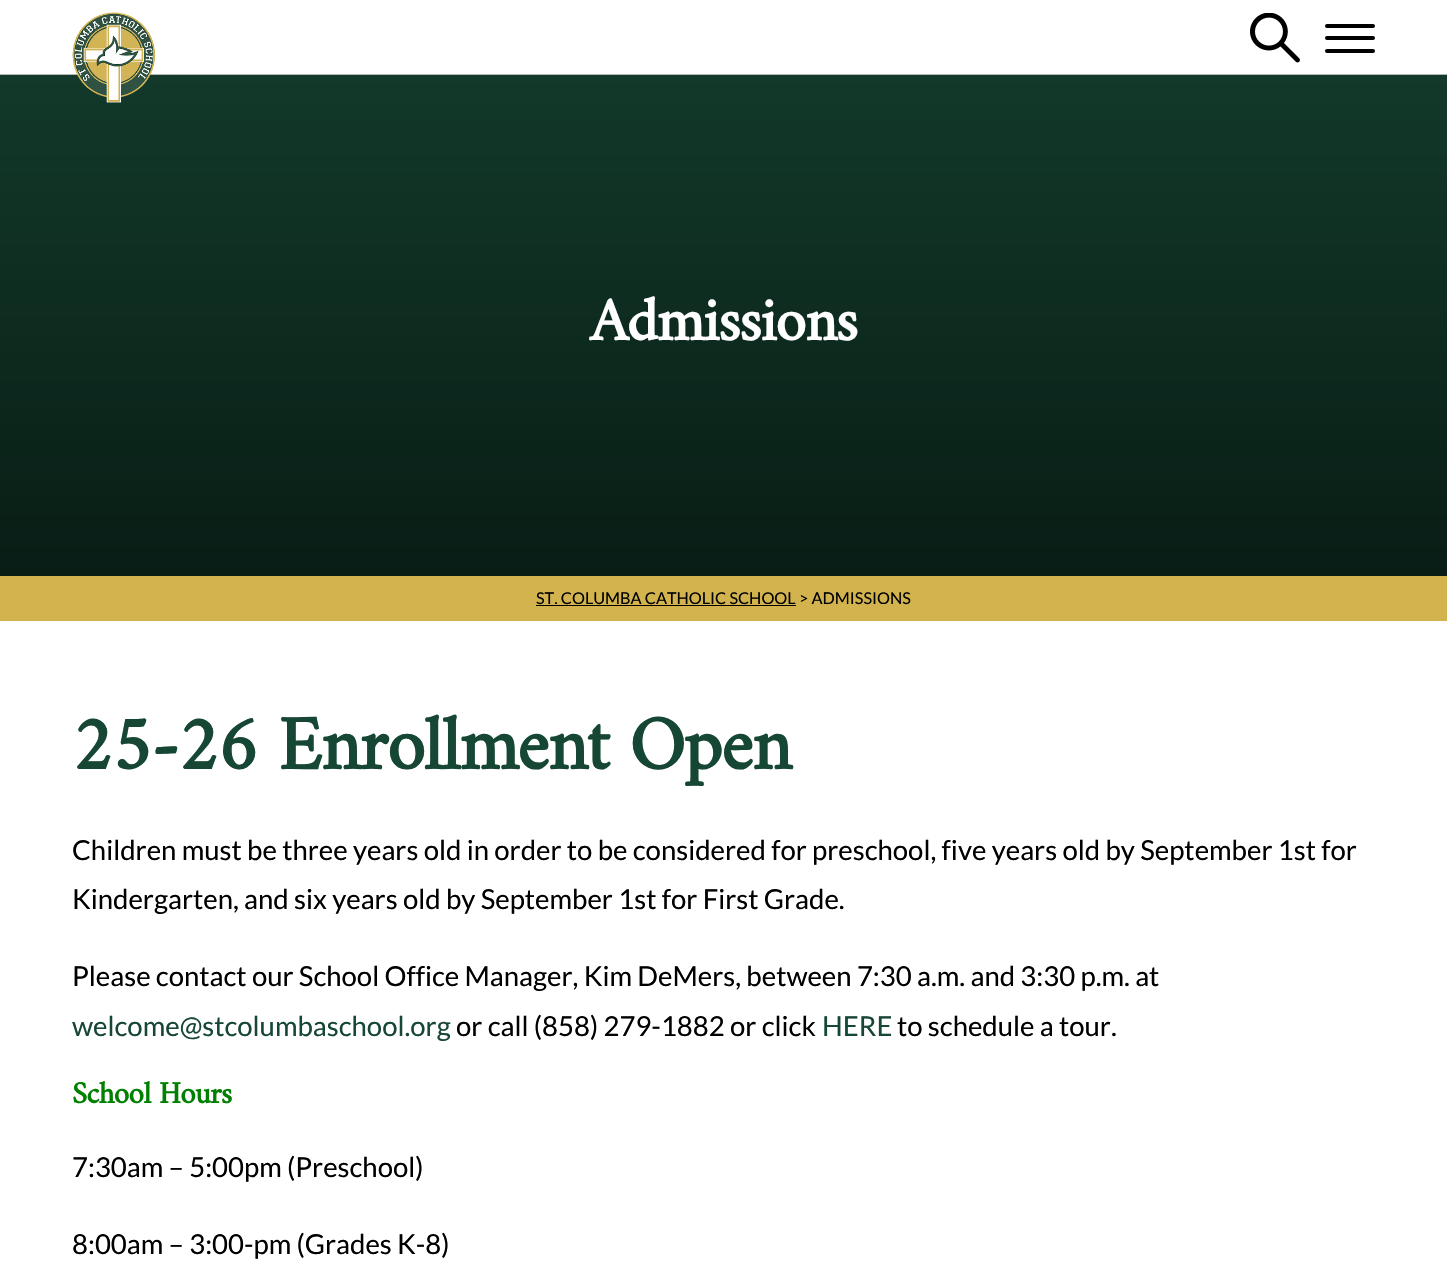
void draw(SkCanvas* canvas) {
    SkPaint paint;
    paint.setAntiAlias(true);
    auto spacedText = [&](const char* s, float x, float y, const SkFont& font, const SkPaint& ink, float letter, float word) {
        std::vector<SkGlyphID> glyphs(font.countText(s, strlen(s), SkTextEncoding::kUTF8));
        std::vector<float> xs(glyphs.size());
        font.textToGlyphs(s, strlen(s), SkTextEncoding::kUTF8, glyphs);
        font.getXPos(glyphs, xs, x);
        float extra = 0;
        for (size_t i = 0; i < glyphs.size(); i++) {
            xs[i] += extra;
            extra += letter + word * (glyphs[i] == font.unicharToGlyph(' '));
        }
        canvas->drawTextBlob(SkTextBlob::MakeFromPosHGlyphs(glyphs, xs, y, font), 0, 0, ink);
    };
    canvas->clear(0xFFFFFFFF);
    paint.setColor(0xFFB3B3B3);
    canvas->drawRect(SkRect::MakeXYWH(0, 74, 1447, 1), paint);
    {
        const SkColor colors[] = {0xFF12392A, 0xFF091D15};
        const float stops[] = {0, 1};
        const SkPoint ends[] = {{724, 75}, {724, 576}};
        paint.setShader(SkGradientShader::MakeLinear(ends, colors, stops, 2, SkTileMode::kClamp));
        paint.setAlpha(255);
    }
    canvas->drawRect(SkRect::MakeXYWH(0, 75, 1447, 501), paint);
    canvas->drawImageRect(SkImages::DeferredFromEncodedData(SkData::MakeFromFileName("img1.png")), SkRect::MakeXYWH(72, 12, 83, 91), SkSamplingOptions());
    canvas->drawImageRect(SkImages::DeferredFromEncodedData(SkData::MakeFromFileName("img2.png")), SkRect::MakeXYWH(1250, 13, 50, 50), SkSamplingOptions());
    paint.setShader(nullptr);
    paint.setColor(0xFF000000);
    canvas->drawRoundRect(SkRect::MakeXYWH(1325, 24, 50, 4), 2, 2, paint);
    canvas->drawRoundRect(SkRect::MakeXYWH(1325, 36, 50, 4), 2, 2, paint);
    canvas->drawRoundRect(SkRect::MakeXYWH(1325, 49, 50, 4), 2, 2, paint);
    SkFont font1(fontMgr->matchFamilyStyle("Amiri", SkFontStyle::Bold()), 62);
    font1.setSubpixel(true);
    paint.setColor(0xFFFFFFFF);
    spacedText("Admissions", 590, 340, font1, paint, -1.25f, 0);
    paint.setColor(0xFFD2B34D);
    canvas->drawRect(SkRect::MakeXYWH(0, 576, 1447, 45), paint);
    SkFont font2(fontMgr->matchFamilyStyle("Lato", SkFontStyle::Normal()), 16.25f);
    font2.setSubpixel(true);
    paint.setColor(0xFF000000);
    canvas->drawString("ST. COLUMBA CATHOLIC SCHOOL", 536, 604, font2, paint);
    canvas->drawRect(SkRect::MakeXYWH(536, 605, 260, 1), paint);
    canvas->drawString("> ADMISSIONS", 799, 604, font2, paint);
    SkFont font3(fontMgr->matchFamilyStyle("Amiri", SkFontStyle::Bold()), 77.25f);
    font3.setSubpixel(true);
    paint.setColor(0xFF164734);
    spacedText("25-26 Enrollment Open", 72, 769, font3, paint, -1.55f, 0);
    SkFont font4(fontMgr->matchFamilyStyle("Lato", SkFontStyle::Normal()), 27.5f);
    font4.setSubpixel(true);
    paint.setColor(0xFF000000);
    canvas->drawString("Children must be three years old in order to be considered for preschool, five years old by September 1st for", 72, 860, font4, paint);
    canvas->drawString("Kindergarten, and six years old by September 1st for First Grade.", 72, 909, font4, paint);
    canvas->drawString("Please contact our School Office Manager, Kim DeMers, between 7:30 a.m. and 3:30 p.m. at", 72, 986, font4, paint);
    paint.setColor(0xFF164734);
    canvas->drawString("welcome@stcolumbaschool.org", 72, 1036, font4, paint);
    paint.setColor(0xFF000000);
    canvas->drawString("or call (858) 279-1882 or click", 456, 1036, font4, paint);
    paint.setColor(0xFF164734);
    canvas->drawString("HERE", 822, 1036, font4, paint);
    paint.setColor(0xFF000000);
    canvas->drawString("to schedule a tour.", 897, 1036, font4, paint);
    SkFont font5(fontMgr->matchFamilyStyle("Amiri", SkFontStyle::Bold()), 31);
    font5.setSubpixel(true);
    paint.setColor(0xFF008000);
    spacedText("School Hours", 72, 1103, font5, paint, -0.6f, 0);
    paint.setColor(0xFF000000);
    canvas->drawString("7:30am – 5:00pm (Preschool)", 72, 1177, font4, paint);
    canvas->drawString("8:00am – 3:00-pm (Grades K-8)", 72, 1254, font4, paint);
}
